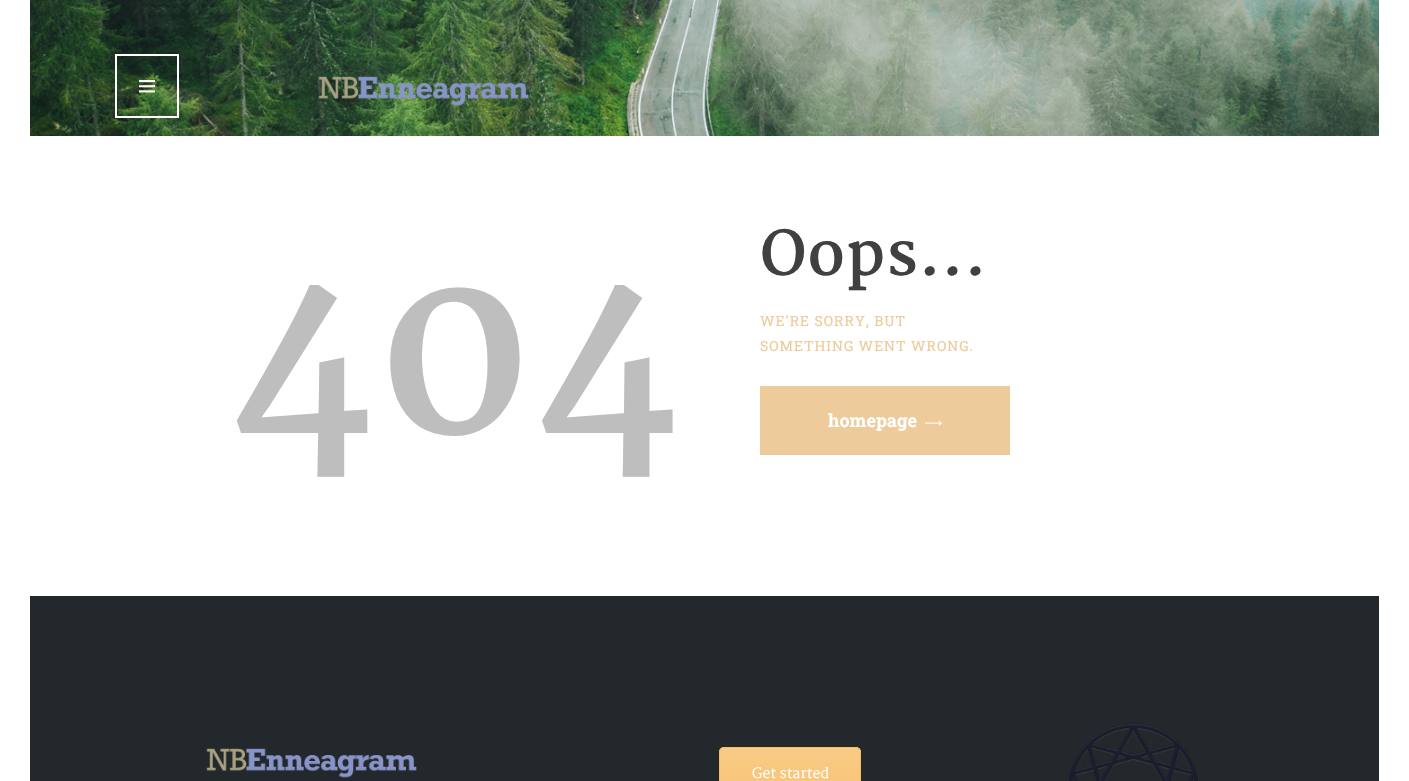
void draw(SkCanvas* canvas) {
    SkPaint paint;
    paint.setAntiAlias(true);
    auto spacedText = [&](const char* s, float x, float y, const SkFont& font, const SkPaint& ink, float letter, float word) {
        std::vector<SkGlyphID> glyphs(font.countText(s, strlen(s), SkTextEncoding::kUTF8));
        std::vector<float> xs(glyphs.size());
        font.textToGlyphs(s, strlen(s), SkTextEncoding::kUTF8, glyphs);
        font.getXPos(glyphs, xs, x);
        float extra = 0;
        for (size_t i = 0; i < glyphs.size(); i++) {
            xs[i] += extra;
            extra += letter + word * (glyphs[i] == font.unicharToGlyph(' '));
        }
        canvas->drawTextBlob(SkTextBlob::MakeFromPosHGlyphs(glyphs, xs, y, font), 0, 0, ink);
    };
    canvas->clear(0xFFFFFFFF);
    canvas->drawImageRect(SkImages::DeferredFromEncodedData(SkData::MakeFromFileName("img1.png")), SkRect::MakeXYWH(30, 0, 1349, 136), SkSamplingOptions());
    paint.setStyle(SkPaint::kStroke_Style);
    paint.setStrokeWidth(2);
    paint.setColor(0xFFFFFFFF);
    canvas->drawRect(SkRect::MakeXYWH(116, 55, 62, 62), paint);
    canvas->drawImageRect(SkImages::DeferredFromEncodedData(SkData::MakeFromFileName("img2.png")), SkRect::MakeXYWH(139, 80, 16, 13), SkSamplingOptions());
    canvas->drawImageRect(SkImages::DeferredFromEncodedData(SkData::MakeFromFileName("img3.png")), SkRect::MakeXYWH(318, 76, 211, 30), SkSamplingOptions());
    SkFont font1(fontMgr->matchFamilyStyle("Martel", SkFontStyle::Bold()), 238);
    font1.setSubpixel(true);
    paint.setStyle(SkPaint::kFill_Style);
    paint.setColor(0xFFBFBEBE);
    canvas->drawString("404", 228, 433, font1, paint);
    SkFont font2(fontMgr->matchFamilyStyle("Martel", SkFontStyle::Bold()), 60.5f);
    font2.setSubpixel(true);
    paint.setColor(0xFF404040);
    spacedText("Oops...", 760, 275, font2, paint, 1, 0);
    SkFont font3(fontMgr->matchFamilyStyle("Roboto Slab", SkFontStyle::Normal()), 14);
    font3.setSubpixel(true);
    paint.setColor(0xFFEDCB9A);
    spacedText("WE'RE SORRY, BUT", 760, 326, font3, paint, 1, 0);
    spacedText("SOMETHING WENT WRONG.", 760, 351, font3, paint, 1, 0);
    canvas->drawRect(SkRect::MakeXYWH(760, 386, 250, 69), paint);
    SkFont font4(fontMgr->matchFamilyStyle("Roboto Slab", SkFontStyle::Bold()), 18);
    font4.setSubpixel(true);
    paint.setColor(0xFFFFFFFF);
    canvas->drawString("homepage", 828, 427, font4, paint);
    canvas->drawImageRect(SkImages::DeferredFromEncodedData(SkData::MakeFromFileName("img4.png")), SkRect::MakeXYWH(925, 420, 17, 6), SkSamplingOptions());
    paint.setColor(0xFF23282C);
    canvas->drawRect(SkRect::MakeXYWH(30, 596, 1349, 185), paint);
    canvas->drawImageRect(SkImages::DeferredFromEncodedData(SkData::MakeFromFileName("img5.png")), SkRect::MakeXYWH(206, 748, 211, 30), SkSamplingOptions());
    paint.setColor(0xFFF7BE68);
    canvas->drawRoundRect(SkRect::MakeXYWH(719, 747, 142, 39), 5, 5, paint);
    canvas->save();
    canvas->clipPath(SkPathBuilder().moveTo(724, 747).lineTo(856, 747).cubicTo(859, 747, 861, 749, 861, 752).lineTo(861, 820).cubicTo(861, 823, 859, 825, 856, 825).lineTo(724, 825).cubicTo(721, 825, 719, 823, 719, 820).lineTo(719, 752).cubicTo(719, 749, 721, 747, 724, 747).close().detach(), true);
    {
        const SkColor colors[] = {0x33FFFFFF, 0x03FFFFFF};
        const float stops[] = {0, 1};
        const SkPoint ends[] = {{790, 748}, {790, 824}};
        paint.setShader(SkGradientShader::MakeLinear(ends, colors, stops, 2, SkTileMode::kClamp));
        paint.setAlpha(255);
    }
    canvas->drawRect(SkRect::MakeXYWH(719, 748, 142, 33), paint);
    canvas->restore();
    paint.setStyle(SkPaint::kStroke_Style);
    paint.setStrokeWidth(1);
    paint.setShader(nullptr);
    paint.setColor(0xFFF7BE68);
    canvas->drawRoundRect(SkRect::MakeXYWH(719.5f, 747.5f, 141, 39), 4.5f, 4.5f, paint);
    SkFont font5(fontMgr->matchFamilyStyle("Martel", SkFontStyle::Normal()), 14);
    font5.setSubpixel(true);
    paint.setStyle(SkPaint::kFill_Style);
    paint.setColor(0xFFFFFFFF);
    canvas->drawString("Get started", 752, 778, font5, paint);
    canvas->drawImageRect(SkImages::DeferredFromEncodedData(SkData::MakeFromFileName("img6.png")), SkRect::MakeXYWH(1069, 723, 129, 58), SkSamplingOptions());
}
